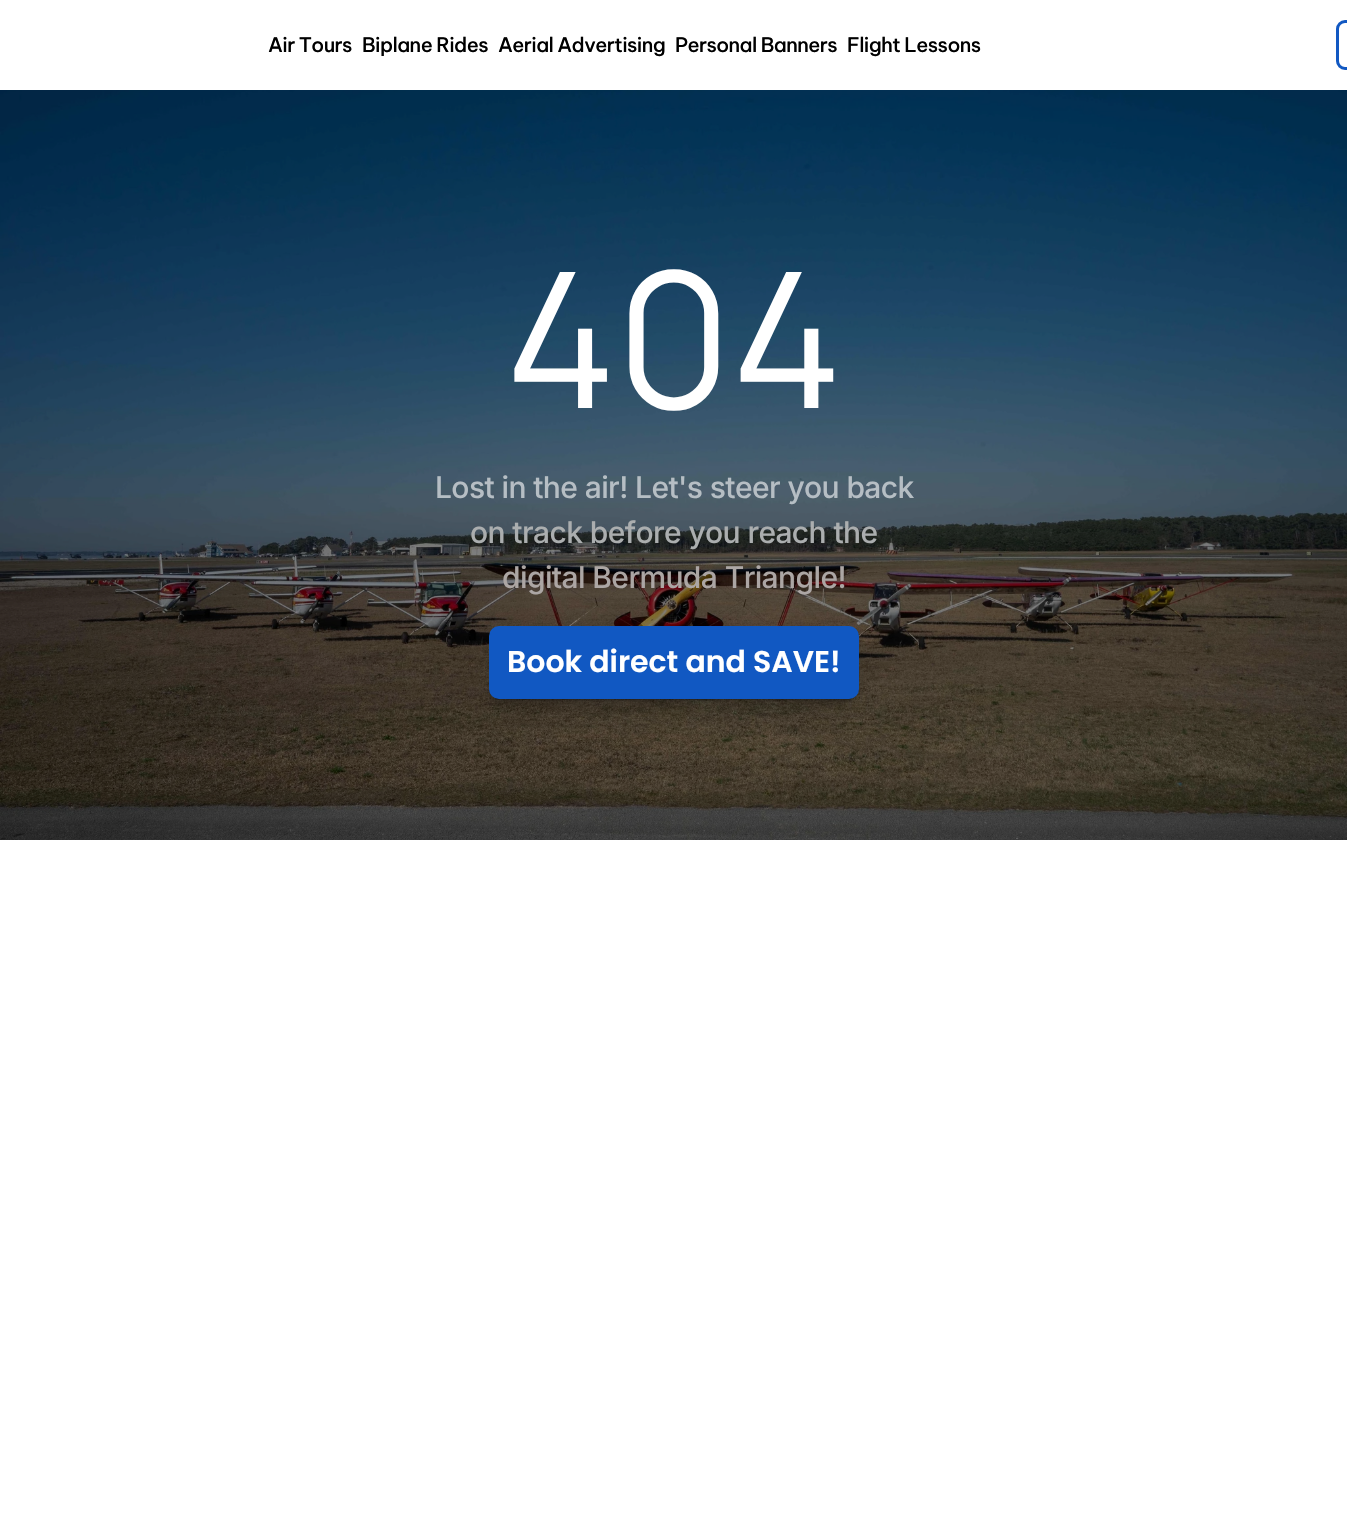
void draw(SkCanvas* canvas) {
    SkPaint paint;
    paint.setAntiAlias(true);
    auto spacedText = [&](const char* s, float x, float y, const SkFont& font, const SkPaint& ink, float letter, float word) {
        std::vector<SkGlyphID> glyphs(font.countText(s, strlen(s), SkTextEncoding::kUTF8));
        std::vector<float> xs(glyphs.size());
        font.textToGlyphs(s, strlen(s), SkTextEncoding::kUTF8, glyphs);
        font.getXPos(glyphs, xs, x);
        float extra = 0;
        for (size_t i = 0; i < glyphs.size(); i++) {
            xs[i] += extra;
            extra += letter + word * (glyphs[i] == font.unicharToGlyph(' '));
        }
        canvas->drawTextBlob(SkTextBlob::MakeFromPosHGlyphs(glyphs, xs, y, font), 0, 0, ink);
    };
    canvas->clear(0xFFFFFFFF);
    SkFont font1(fontMgr->matchFamilyStyle("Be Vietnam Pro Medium", SkFontStyle(500, SkFontStyle::kNormal_Width, SkFontStyle::kUpright_Slant)), 20);
    font1.setSubpixel(true);
    paint.setColor(0xFF000000);
    spacedText("Air Tours", 268, 52, font1, paint, -0.6f, 0);
    spacedText("Biplane Rides", 362, 52, font1, paint, -0.6f, 0);
    spacedText("Aerial Advertising", 498, 52, font1, paint, -0.6f, 0);
    spacedText("Personal Banners", 675, 52, font1, paint, -0.6f, 0);
    spacedText("Flight Lessons", 847, 52, font1, paint, -0.6f, 0);
    paint.setStyle(SkPaint::kStroke_Style);
    paint.setStrokeWidth(3);
    paint.setColor(0xFF1158C2);
    canvas->drawRoundRect(SkRect::MakeXYWH(1337.5f, 21.5f, 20, 47), 7.5f, 7.5f, paint);
    canvas->drawImageRect(SkImages::DeferredFromEncodedData(SkData::MakeFromFileName("img1.png")), SkRect::MakeXYWH(0, 90, 1347, 750), SkSamplingOptions());
    canvas->drawImageRect(SkImages::DeferredFromEncodedData(SkData::MakeFromFileName("img2.png")), SkRect::MakeXYWH(514, 269, 320, 142), SkSamplingOptions());
    SkFont font2(fontMgr->matchFamilyStyle("Inter", SkFontStyle(500, SkFontStyle::kNormal_Width, SkFontStyle::kUpright_Slant)), 30);
    font2.setSubpixel(true);
    paint.setStyle(SkPaint::kFill_Style);
    paint.setColor(0xFFB6BEC4);
    spacedText("Lost in the air! Let's steer you back", 435, 498, font2, paint, -0.6f, 0);
    paint.setColor(0xFFABAEAF);
    spacedText("on track before you reach the", 470, 543, font2, paint, -0.6f, 0);
    paint.setColor(0xFFACA6A4);
    spacedText("digital Bermuda Triangle!", 502, 588, font2, paint, -0.6f, 0);
    paint.setColor(0x1C000000);
    paint.setMaskFilter(SkMaskFilter::MakeBlur(kNormal_SkBlurStyle, 8.5f));
    canvas->drawRoundRect(SkRect::MakeXYWH(493, 648, 362, 65), 6, 6, paint);
    paint.setMaskFilter(nullptr);
    paint.setColor(0x1F000000);
    paint.setMaskFilter(SkMaskFilter::MakeBlur(kNormal_SkBlurStyle, 4.5f));
    canvas->drawRoundRect(SkRect::MakeXYWH(493, 638, 363, 66), 8, 8, paint);
    paint.setMaskFilter(nullptr);
    paint.setColor(0x24000000);
    paint.setMaskFilter(SkMaskFilter::MakeBlur(kNormal_SkBlurStyle, 2.5f));
    canvas->drawRoundRect(SkRect::MakeXYWH(491, 633, 365, 68), 8, 8, paint);
    paint.setMaskFilter(nullptr);
    paint.setMaskFilter(SkMaskFilter::MakeBlur(kNormal_SkBlurStyle, 1));
    canvas->drawRoundRect(SkRect::MakeXYWH(490, 630, 368, 70), 9, 9, paint);
    paint.setMaskFilter(nullptr);
    paint.setColor(0x26000000);
    paint.setMaskFilter(SkMaskFilter::MakeBlur(kNormal_SkBlurStyle, 0.5f));
    canvas->drawRoundRect(SkRect::MakeXYWH(490, 628, 368, 71), 9, 9, paint);
    paint.setMaskFilter(nullptr);
    paint.setColor(0xFF1158C2);
    canvas->drawRoundRect(SkRect::MakeXYWH(489, 626, 370, 73), 10, 10, paint);
    SkFont font3(fontMgr->matchFamilyStyle("Poppins", SkFontStyle(600, SkFontStyle::kNormal_Width, SkFontStyle::kUpright_Slant)), 30);
    font3.setSubpixel(true);
    paint.setColor(0xFFFFFFFF);
    canvas->drawString("Book direct and SAVE!", 507, 672, font3, paint);
}
